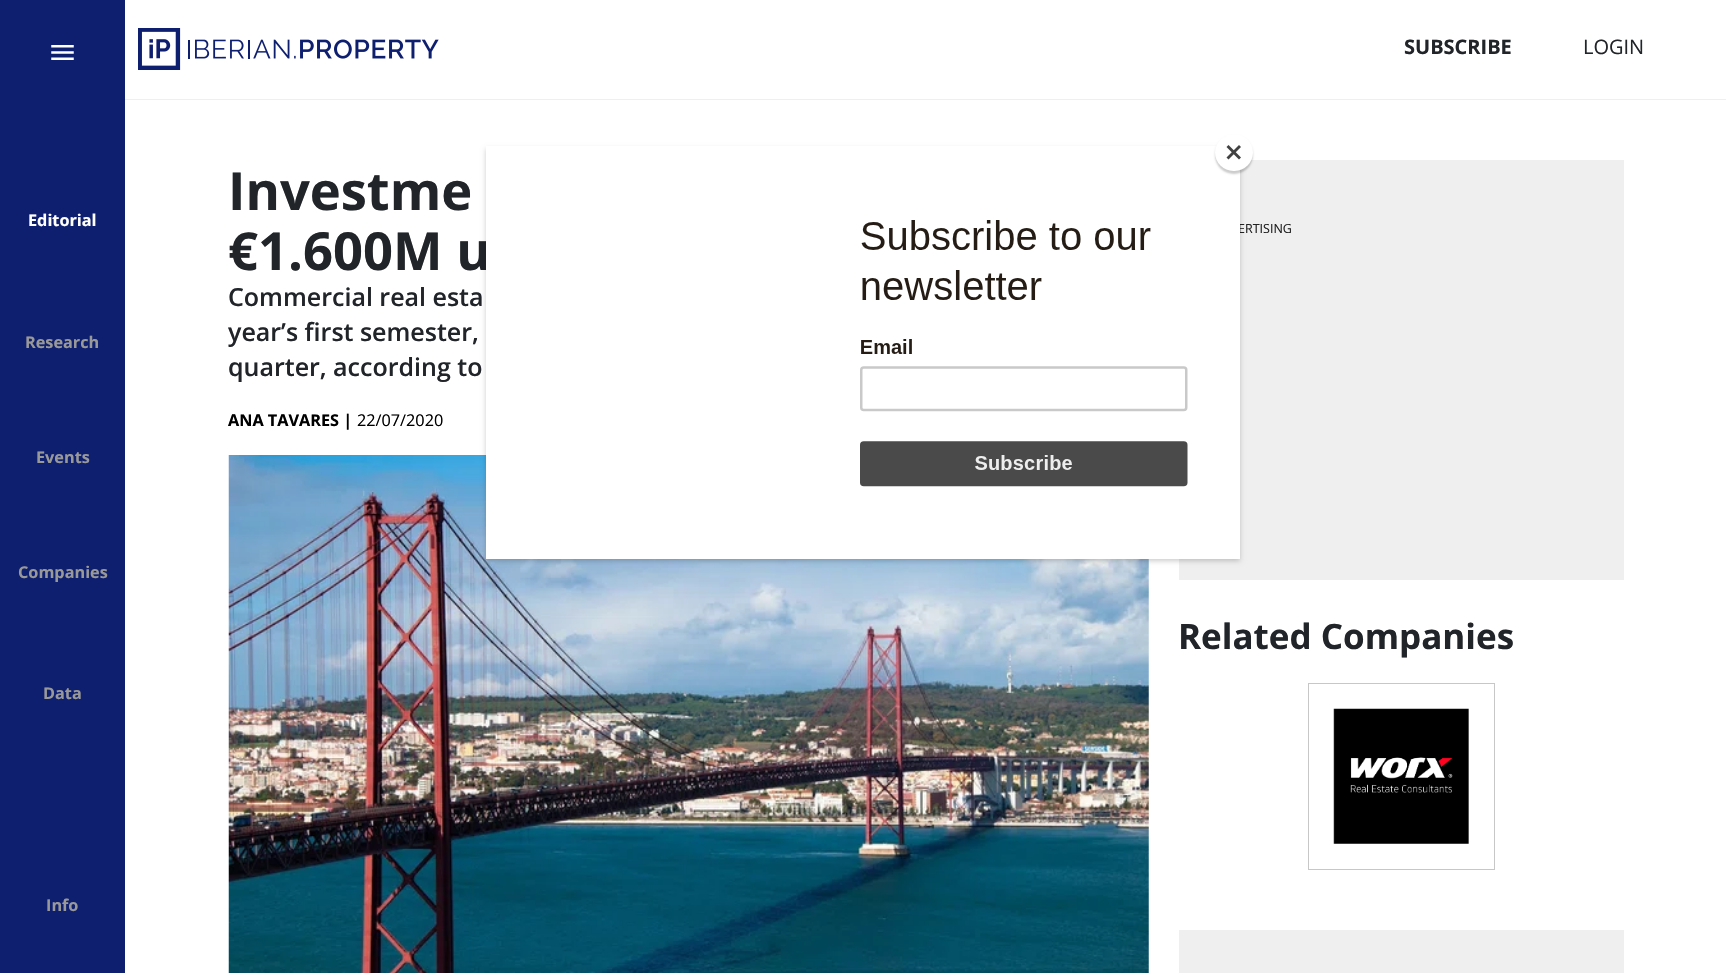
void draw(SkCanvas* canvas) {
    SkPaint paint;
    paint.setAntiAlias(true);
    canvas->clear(0xFFFFFFFF);
    paint.setColor(0xFF0F1F6F);
    canvas->drawRect(SkRect::MakeXYWH(0, 0, 125, 973), paint);
    canvas->drawImageRect(SkImages::DeferredFromEncodedData(SkData::MakeFromFileName("img1.png")), SkRect::MakeXYWH(51, 45, 23, 15), SkSamplingOptions());
    SkFont font1(fontMgr->matchFamilyStyle("Open Sans", SkFontStyle::Bold()), 16.25f);
    font1.setSubpixel(true);
    paint.setColor(0xFFFFFFFF);
    canvas->drawString("Editorial", 28, 226, font1, paint);
    paint.setColor(0xFF999999);
    canvas->drawString("Research", 25, 348, font1, paint);
    canvas->drawString("Events", 36, 463, font1, paint);
    canvas->drawString("Companies", 18, 578, font1, paint);
    canvas->drawString("Data", 43, 699, font1, paint);
    canvas->drawString("Info", 46, 911, font1, paint);
    paint.setColor(0xFFEFEFEF);
    canvas->drawRect(SkRect::MakeXYWH(125, 99, 1601, 1), paint);
    canvas->drawImageRect(SkImages::DeferredFromEncodedData(SkData::MakeFromFileName("img2.png")), SkRect::MakeXYWH(138, 28, 301, 42), SkSamplingOptions());
    SkFont font2(fontMgr->matchFamilyStyle("Open Sans", SkFontStyle::Bold()), 20);
    font2.setSubpixel(true);
    paint.setColor(0xFF212529);
    canvas->drawString("SUBSCRIBE", 1404, 54, font2, paint);
    SkFont font3(fontMgr->matchFamilyStyle("Open Sans", SkFontStyle::Normal()), 20);
    font3.setSubpixel(true);
    canvas->drawString("LOGIN", 1583, 54, font3, paint);
    SkFont font4(fontMgr->matchFamilyStyle("Open Sans", SkFontStyle::Bold()), 52.5f);
    font4.setSubpixel(true);
    canvas->drawString("Investme", 228, 210, font4, paint);
    canvas->drawString("€1.600M u", 228, 270, font4, paint);
    SkFont font5(fontMgr->matchFamilyStyle("Open Sans", SkFontStyle(600, SkFontStyle::kNormal_Width, SkFontStyle::kUpright_Slant)), 25);
    font5.setSubpixel(true);
    canvas->drawString("Commercial real esta", 228, 306, font5, paint);
    canvas->drawString("year’s first semester,", 228, 341, font5, paint);
    canvas->drawString("quarter, according to", 228, 376, font5, paint);
    paint.setColor(0xFF000000);
    canvas->drawString("ANA TAVARES |", 228, 426, font1, paint);
    SkFont font6(fontMgr->matchFamilyStyle("Open Sans", SkFontStyle::Normal()), 16.25f);
    font6.setSubpixel(true);
    canvas->drawString("22/07/2020", 357, 426, font6, paint);
    canvas->drawImageRect(SkImages::DeferredFromEncodedData(SkData::MakeFromFileName("img3.png")), SkRect::MakeXYWH(228, 455, 921, 518), SkSamplingOptions());
    paint.setColor(0xFFEFEFEF);
    canvas->drawRect(SkRect::MakeXYWH(1179, 160, 445, 420), paint);
    SkFont font7(fontMgr->matchFamilyStyle("Open Sans", SkFontStyle::Normal()), 12.5f);
    font7.setSubpixel(true);
    paint.setColor(0xFF222222);
    canvas->drawString("ERTISING", 1238, 233, font7, paint);
    SkFont font8(fontMgr->matchFamilyStyle("Open Sans", SkFontStyle::Bold()), 35);
    font8.setSubpixel(true);
    paint.setColor(0xFF212529);
    canvas->drawString("Related Companies", 1178, 649, font8, paint);
    paint.setStyle(SkPaint::kStroke_Style);
    paint.setStrokeWidth(1);
    paint.setColor(0xFFC7C7C7);
    canvas->drawRect(SkRect::MakeXYWH(1308.5f, 683.5f, 186, 186), paint);
    canvas->drawImageRect(SkImages::DeferredFromEncodedData(SkData::MakeFromFileName("img4.png")), SkRect::MakeXYWH(1333, 708, 136, 136), SkSamplingOptions());
    paint.setStyle(SkPaint::kFill_Style);
    paint.setColor(0xFFEFEFEF);
    canvas->drawRect(SkRect::MakeXYWH(1179, 930, 445, 43), paint);
    canvas->save();
    canvas->clipPath(SkPathBuilder(SkPathFillType::kEvenOdd).moveTo(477, 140).lineTo(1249, 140).lineTo(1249, 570).lineTo(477, 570).close().moveTo(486, 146).lineTo(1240, 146).lineTo(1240, 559).lineTo(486, 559).close().detach(), true);
    paint.setColor(0x33000000);
    paint.setMaskFilter(SkMaskFilter::MakeBlur(kNormal_SkBlurStyle, 2.5f));
    canvas->drawRect(SkRect::MakeXYWH(486, 149, 754, 412), paint);
    paint.setMaskFilter(nullptr);
    canvas->restore();
    canvas->drawImageRect(SkImages::DeferredFromEncodedData(SkData::MakeFromFileName("img5.png")), SkRect::MakeXYWH(486, 149, 754, 410), SkSamplingOptions());
    paint.setMaskFilter(SkMaskFilter::MakeBlur(kNormal_SkBlurStyle, 1));
    canvas->drawRoundRect(SkRect::MakeXYWH(1215, 136, 38, 38), 19, 19, paint);
    paint.setMaskFilter(nullptr);
    paint.setColor(0xFFFFFFFF);
    canvas->drawRoundRect(SkRect::MakeXYWH(1215, 134, 38, 37), 18.5f, 18.5f, paint);
    paint.setColor(0xFF414141);
    canvas->drawPath(SkPathBuilder().moveTo(1239, 145).lineTo(1241, 147).lineTo(1228.5f, 159.5f).lineTo(1226.5f, 157.5f).close().detach(), paint);
    canvas->drawPath(SkPathBuilder().moveTo(1226.5f, 147).lineTo(1228.5f, 145).lineTo(1241, 157.5f).lineTo(1239, 159.5f).close().detach(), paint);
}
